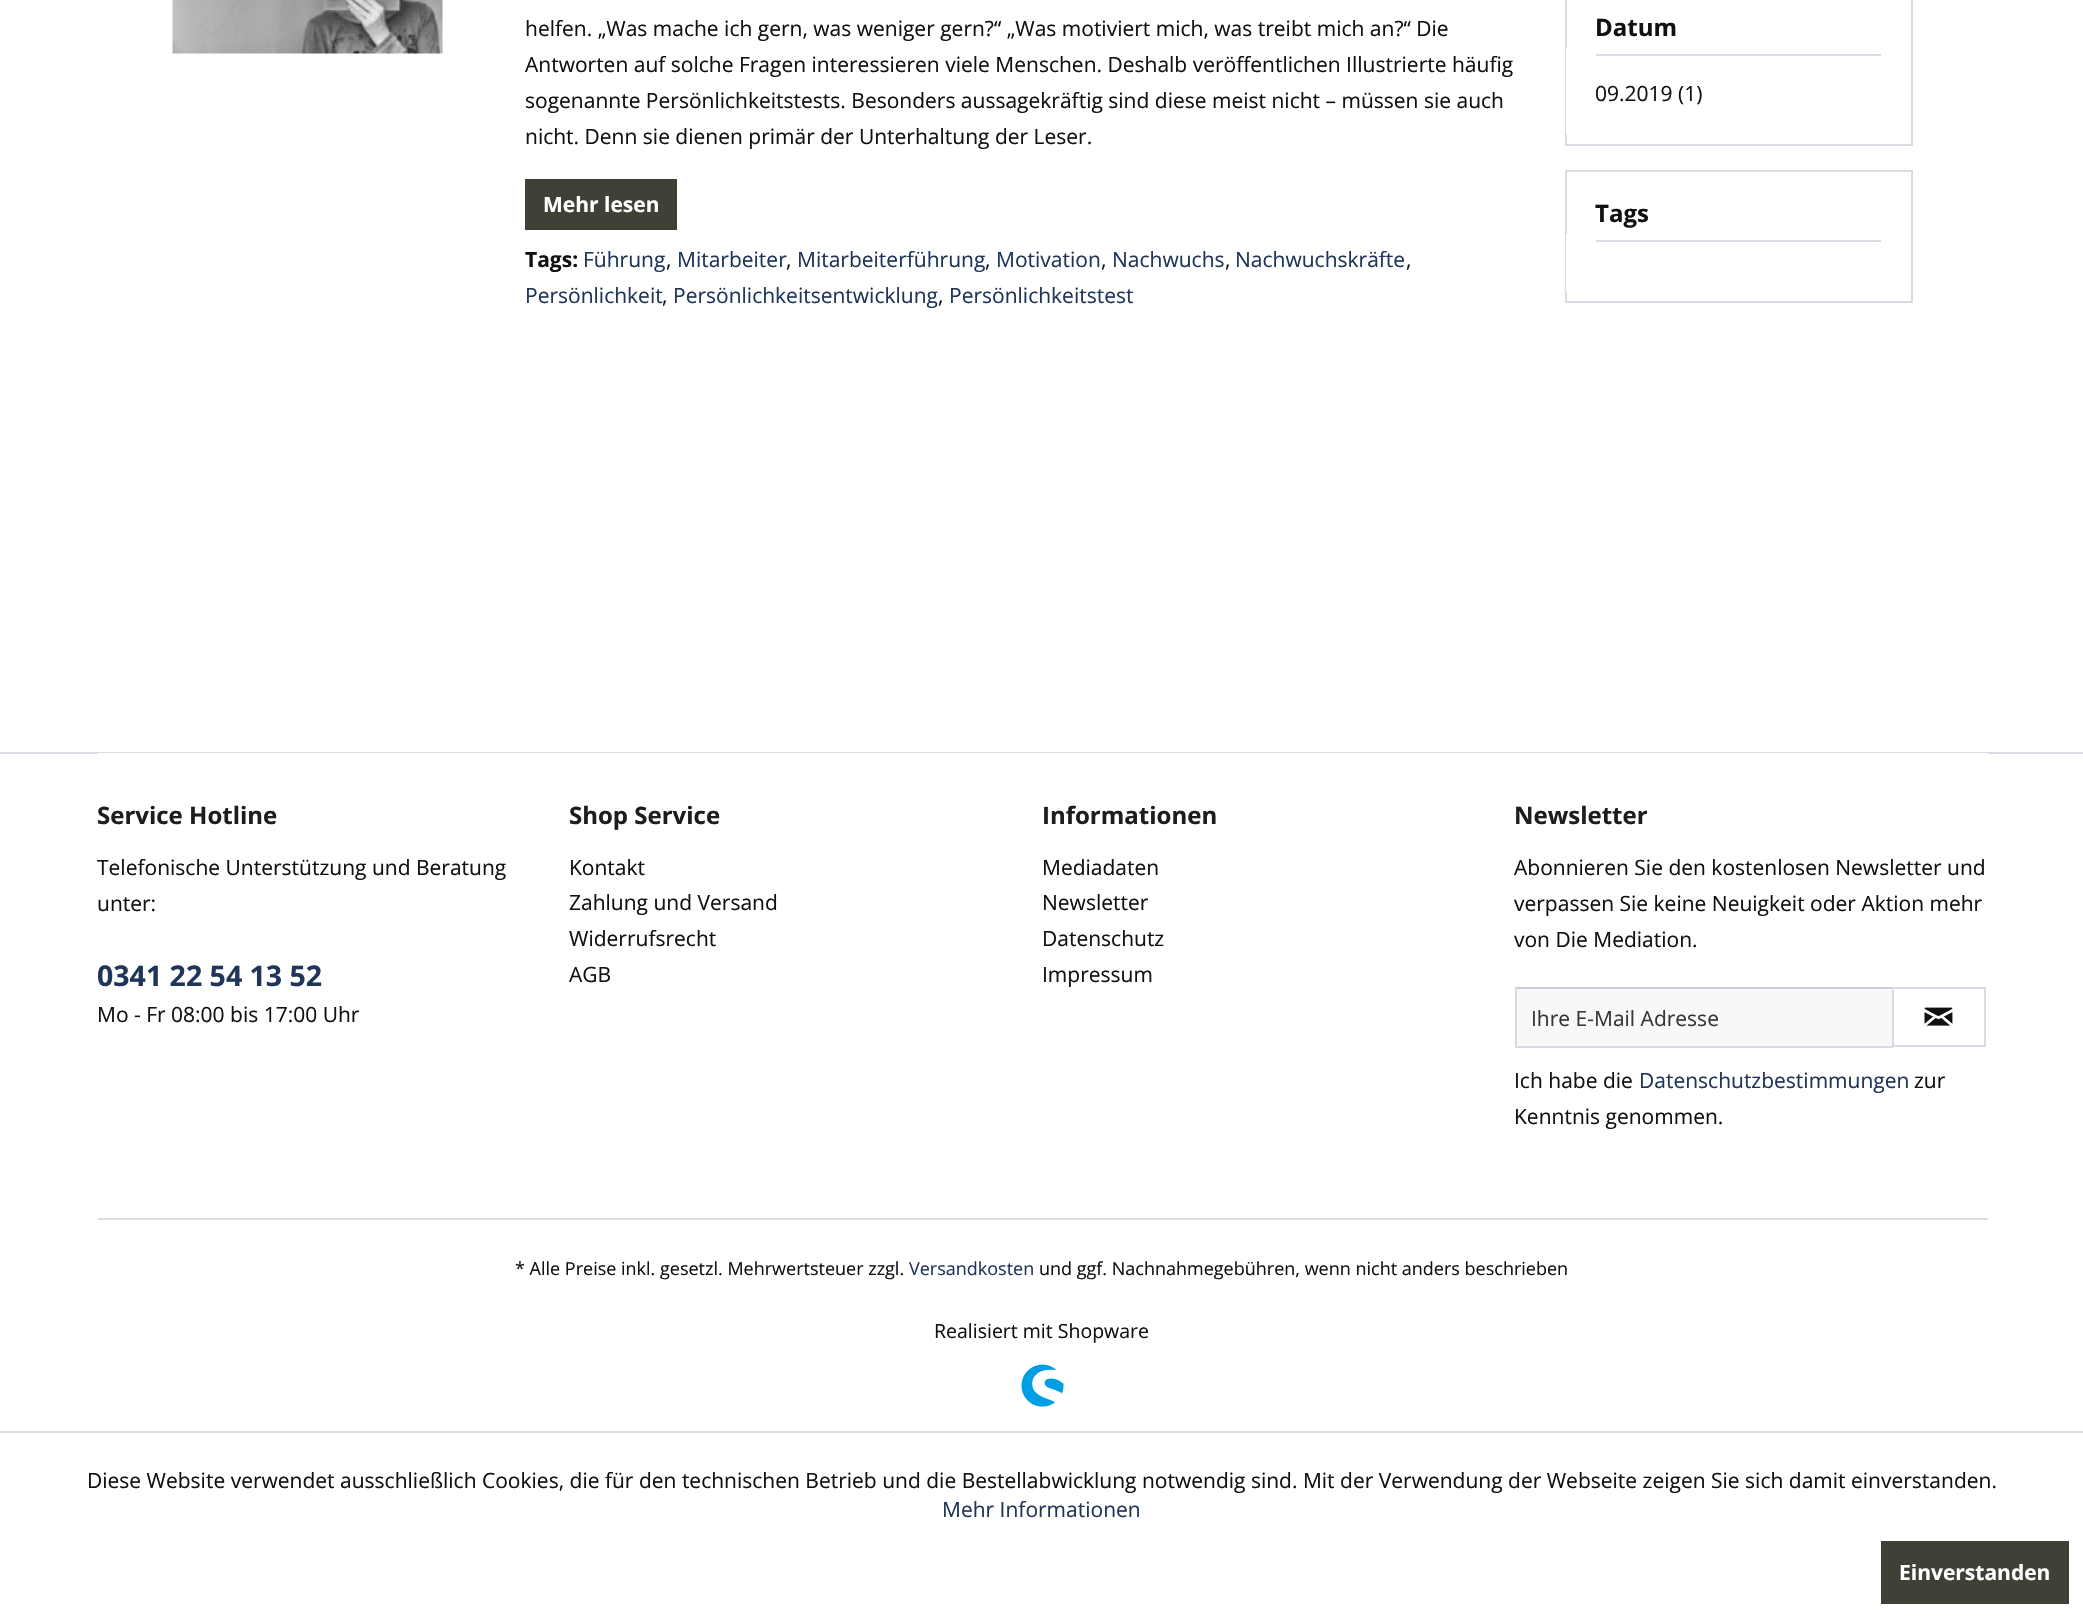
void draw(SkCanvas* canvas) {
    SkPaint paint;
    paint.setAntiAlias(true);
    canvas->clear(0xFFFFFFFF);
    canvas->drawImageRect(SkImages::DeferredFromEncodedData(SkData::MakeFromFileName("img1.png")), SkRect::MakeXYWH(172, 0, 271, 54), SkSamplingOptions());
    SkFont font1(fontMgr->matchFamilyStyle("Open Sans", SkFontStyle::Normal()), 21);
    font1.setSubpixel(true);
    paint.setColor(0xFF111111);
    canvas->drawString("helfen. „Was mache ich gern, was weniger gern?“ „Was motiviert mich, was treibt mich an?“ Die", 525, 36, font1, paint);
    canvas->drawString("Antworten auf solche Fragen interessieren viele Menschen. Deshalb veröffentlichen Illustrierte häufig", 525, 72, font1, paint);
    canvas->drawString("sogenannte Persönlichkeitstests. Besonders aussagekräftig sind diese meist nicht – müssen sie auch", 525, 108, font1, paint);
    canvas->drawString("nicht. Denn sie dienen primär der Unterhaltung der Leser.", 525, 144, font1, paint);
    paint.setColor(0xFF404036);
    canvas->drawRect(SkRect::MakeXYWH(525, 179, 152, 51), paint);
    SkFont font2(fontMgr->matchFamilyStyle("Open Sans", SkFontStyle::Bold()), 21);
    font2.setSubpixel(true);
    paint.setColor(0xFFFFFFFF);
    canvas->drawString("Mehr lesen", 543, 212, font2, paint);
    paint.setColor(0xFF111111);
    canvas->drawString("Tags:", 525, 267, font2, paint);
    paint.setColor(0xFF20355A);
    canvas->drawString("Führung", 583, 267, font1, paint);
    paint.setColor(0xFF111111);
    canvas->drawString(",", 666, 267, font1, paint);
    paint.setColor(0xFF20355A);
    canvas->drawString("Mitarbeiter", 677, 267, font1, paint);
    paint.setColor(0xFF111111);
    canvas->drawString(",", 786, 267, font1, paint);
    paint.setColor(0xFF20355A);
    canvas->drawString("Mitarbeiterführung", 797, 267, font1, paint);
    paint.setColor(0xFF111111);
    canvas->drawString(",", 985, 267, font1, paint);
    paint.setColor(0xFF20355A);
    canvas->drawString("Motivation", 996, 267, font1, paint);
    paint.setColor(0xFF111111);
    canvas->drawString(",", 1101, 267, font1, paint);
    paint.setColor(0xFF20355A);
    canvas->drawString("Nachwuchs", 1112, 267, font1, paint);
    paint.setColor(0xFF111111);
    canvas->drawString(",", 1225, 267, font1, paint);
    paint.setColor(0xFF20355A);
    canvas->drawString("Nachwuchskräfte", 1235, 267, font1, paint);
    paint.setColor(0xFF111111);
    canvas->drawString(",", 1406, 267, font1, paint);
    paint.setColor(0xFF20355A);
    canvas->drawString("Persönlichkeit", 525, 303, font1, paint);
    paint.setColor(0xFF111111);
    canvas->drawString(",", 662, 303, font1, paint);
    paint.setColor(0xFF20355A);
    canvas->drawString("Persönlichkeitsentwicklung", 673, 303, font1, paint);
    paint.setColor(0xFF111111);
    canvas->drawString(",", 938, 303, font1, paint);
    paint.setColor(0xFF20355A);
    canvas->drawString("Persönlichkeitstest", 949, 303, font1, paint);
    paint.setStyle(SkPaint::kStroke_Style);
    paint.setStrokeWidth(2);
    paint.setColor(0xFFDADAE5);
    canvas->drawRect(SkRect::MakeXYWH(1566, -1, 346, 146), paint);
    paint.setStyle(SkPaint::kFill_Style);
    paint.setColor(0xFFFFFFFF);
    canvas->drawPath(SkPathBuilder().moveTo(1566, 48).lineTo(1911, 48).lineTo(1911, 132).cubicTo(1911, 135, 1909, 137, 1906, 137).lineTo(1571, 137).cubicTo(1568, 137, 1566, 135, 1566, 132).close().detach(), paint);
    paint.setColor(0xFFDADAE5);
    canvas->drawRect(SkRect::MakeXYWH(1596, 54, 285, 2), paint);
    SkFont font3(fontMgr->matchFamilyStyle("Open Sans", SkFontStyle::Bold()), 24);
    font3.setSubpixel(true);
    paint.setColor(0xFF111111);
    canvas->drawString("Datum", 1595, 36, font3, paint);
    canvas->drawString("09.2019 (1)", 1595, 101, font1, paint);
    paint.setStyle(SkPaint::kStroke_Style);
    paint.setColor(0xFFDADAE5);
    canvas->drawRect(SkRect::MakeXYWH(1566, 171, 346, 131), paint);
    paint.setStyle(SkPaint::kFill_Style);
    paint.setColor(0xFFFFFFFF);
    canvas->drawPath(SkPathBuilder().moveTo(1566, 234).lineTo(1911, 234).lineTo(1911, 289).cubicTo(1911, 292, 1909, 294, 1906, 294).lineTo(1571, 294).cubicTo(1568, 294, 1566, 292, 1566, 289).close().detach(), paint);
    paint.setColor(0xFFDADAE5);
    canvas->drawRect(SkRect::MakeXYWH(1596, 240, 285, 2), paint);
    paint.setColor(0xFF111111);
    canvas->drawString("Tags", 1595, 222, font3, paint);
    paint.setColor(0xFFDADAE5);
    canvas->drawRect(SkRect::MakeXYWH(0, 752, 2083, 2), paint);
    paint.setColor(0xFFFFFFFF);
    canvas->drawRect(SkRect::MakeXYWH(98, 753, 1890, 1), paint);
    paint.setColor(0xFFDADAE5);
    canvas->drawRect(SkRect::MakeXYWH(98, 1218, 1890, 2), paint);
    paint.setColor(0xFF1D1D1B);
    canvas->drawString("Service Hotline", 97, 824, font3, paint);
    paint.setColor(0xFF111111);
    canvas->drawString("Telefonische Unterstützung und Beratung", 97, 875, font1, paint);
    canvas->drawString("unter:", 97, 911, font1, paint);
    SkFont font4(fontMgr->matchFamilyStyle("Open Sans", SkFontStyle::Bold()), 28.5f);
    font4.setSubpixel(true);
    paint.setColor(0xFF20355A);
    canvas->drawString("0341 22 54 13 52", 97, 986, font4, paint);
    paint.setColor(0xFF111111);
    canvas->drawString("Mo - Fr 08:00 bis 17:00 Uhr", 97, 1022, font1, paint);
    paint.setColor(0xFF1D1D1B);
    canvas->drawString("Shop Service", 569, 824, font3, paint);
    paint.setColor(0xFF111111);
    canvas->drawString("Kontakt", 569, 875, font1, paint);
    canvas->drawString("Zahlung und Versand", 569, 910, font1, paint);
    canvas->drawString("Widerrufsrecht", 569, 946, font1, paint);
    canvas->drawString("AGB", 569, 982, font1, paint);
    paint.setColor(0xFF1D1D1B);
    canvas->drawString("Informationen", 1042, 824, font3, paint);
    paint.setColor(0xFF111111);
    canvas->drawString("Mediadaten", 1042, 875, font1, paint);
    canvas->drawString("Newsletter", 1042, 910, font1, paint);
    canvas->drawString("Datenschutz", 1042, 946, font1, paint);
    canvas->drawString("Impressum", 1042, 982, font1, paint);
    paint.setColor(0xFF1D1D1B);
    canvas->drawString("Newsletter", 1514, 824, font3, paint);
    paint.setColor(0xFF111111);
    canvas->drawString("Abonnieren Sie den kostenlosen Newsletter und", 1514, 875, font1, paint);
    canvas->drawString("verpassen Sie keine Neuigkeit oder Aktion mehr", 1514, 911, font1, paint);
    canvas->drawString("von Die Mediation.", 1514, 947, font1, paint);
    paint.setColor(0xFFF8F8FA);
    canvas->drawRect(SkRect::MakeXYWH(1517, 989, 375, 57), paint);
    paint.setColor(0xFFCBCBDB);
    canvas->drawRect(SkRect::MakeXYWH(1515, 987, 378, 2), paint);
    paint.setColor(0xFFDADAE5);
    canvas->drawRect(SkRect::MakeXYWH(1515, 1046, 378, 2), paint);
    canvas->drawRect(SkRect::MakeXYWH(1515, 987, 2, 60), paint);
    paint.setColor(0xFF373737);
    canvas->drawString("Ihre E-Mail Adresse", 1531, 1026, font1, paint);
    paint.setStyle(SkPaint::kStroke_Style);
    paint.setColor(0xFFDADAE5);
    canvas->drawRect(SkRect::MakeXYWH(1893, 988, 92, 58), paint);
    canvas->drawImageRect(SkImages::DeferredFromEncodedData(SkData::MakeFromFileName("img2.png")), SkRect::MakeXYWH(1924, 1007, 29, 19), SkSamplingOptions());
    paint.setStyle(SkPaint::kFill_Style);
    paint.setColor(0xFF111111);
    canvas->drawString("Ich habe die", 1514, 1088, font1, paint);
    paint.setColor(0xFF20355A);
    canvas->drawString("Datenschutzbestimmungen", 1639, 1088, font1, paint);
    paint.setColor(0xFF111111);
    canvas->drawString("zur", 1914, 1088, font1, paint);
    canvas->drawString("Kenntnis genommen.", 1514, 1124, font1, paint);
    SkFont font5(fontMgr->matchFamilyStyle("Open Sans", SkFontStyle::Normal()), 18);
    font5.setSubpixel(true);
    canvas->drawString("* Alle Preise inkl. gesetzl. Mehrwertsteuer zzgl.", 515, 1275, font5, paint);
    paint.setColor(0xFF20355A);
    canvas->drawString("Versandkosten", 909, 1275, font5, paint);
    paint.setColor(0xFF111111);
    canvas->drawString("und ggf. Nachnahmegebühren, wenn nicht anders beschrieben", 1039, 1275, font5, paint);
    SkFont font6(fontMgr->matchFamilyStyle("Open Sans", SkFontStyle::Normal()), 19.5f);
    font6.setSubpixel(true);
    canvas->drawString("Realisiert mit Shopware", 934, 1338, font6, paint);
    canvas->drawImageRect(SkImages::DeferredFromEncodedData(SkData::MakeFromFileName("img3.png")), SkRect::MakeXYWH(1021, 1364, 43, 43), SkSamplingOptions());
    paint.setColor(0xFFDADAE5);
    canvas->drawRect(SkRect::MakeXYWH(0, 1431, 2083, 2), paint);
    paint.setColor(0xFF111111);
    canvas->drawString("Diese Website verwendet ausschließlich Cookies, die für den technischen Betrieb und die Bestellabwicklung notwendig sind. Mit der Verwendung der Webseite zeigen Sie sich damit einverstanden.", 87, 1488, font1, paint);
    paint.setColor(0xFF20355A);
    canvas->drawString("Mehr Informationen", 942, 1517, font1, paint);
    paint.setColor(0xFF404036);
    canvas->drawRect(SkRect::MakeXYWH(1881, 1541, 188, 63), paint);
    paint.setColor(0xFFFFFFFF);
    canvas->drawString("Einverstanden", 1899, 1580, font2, paint);
}
